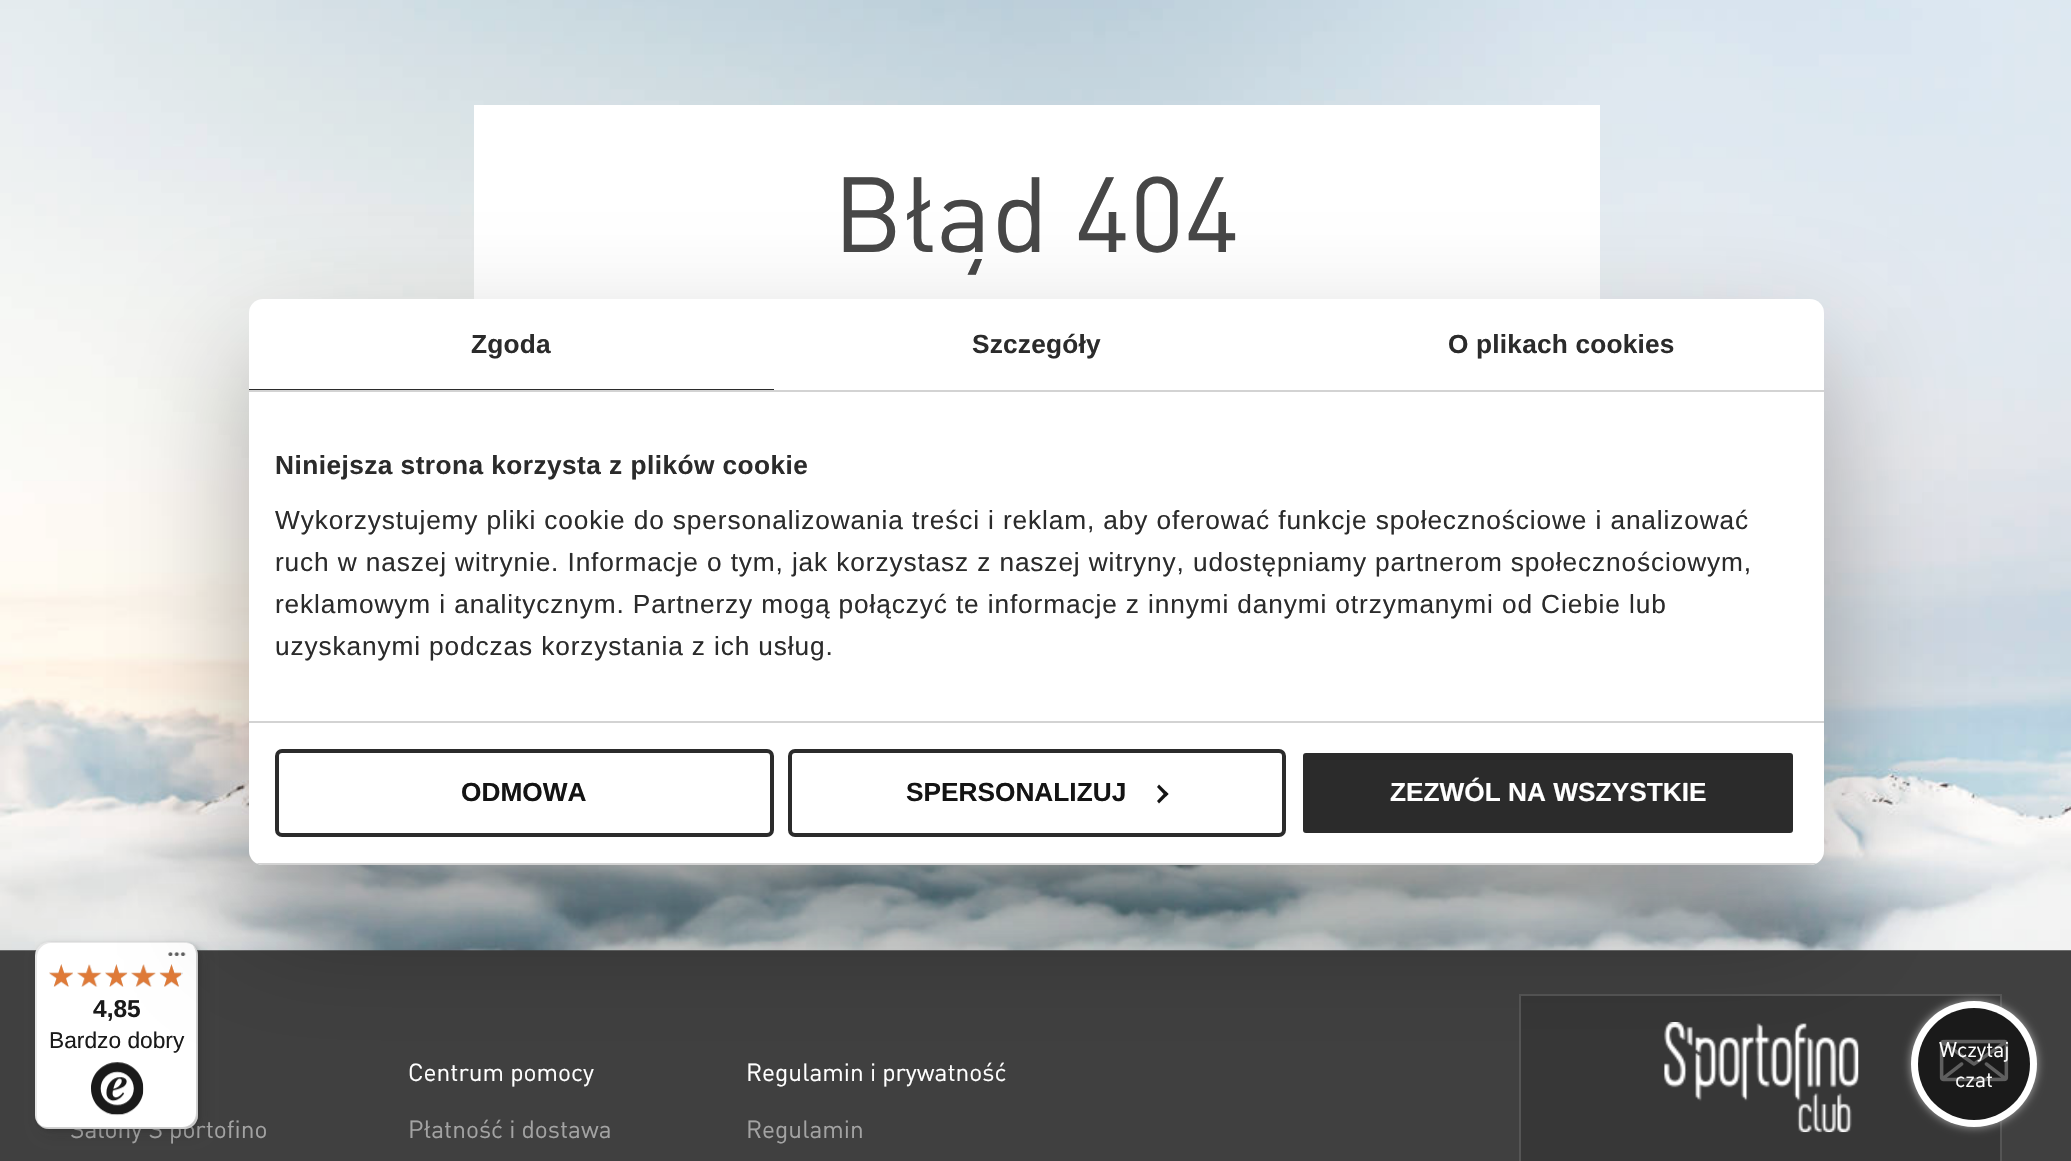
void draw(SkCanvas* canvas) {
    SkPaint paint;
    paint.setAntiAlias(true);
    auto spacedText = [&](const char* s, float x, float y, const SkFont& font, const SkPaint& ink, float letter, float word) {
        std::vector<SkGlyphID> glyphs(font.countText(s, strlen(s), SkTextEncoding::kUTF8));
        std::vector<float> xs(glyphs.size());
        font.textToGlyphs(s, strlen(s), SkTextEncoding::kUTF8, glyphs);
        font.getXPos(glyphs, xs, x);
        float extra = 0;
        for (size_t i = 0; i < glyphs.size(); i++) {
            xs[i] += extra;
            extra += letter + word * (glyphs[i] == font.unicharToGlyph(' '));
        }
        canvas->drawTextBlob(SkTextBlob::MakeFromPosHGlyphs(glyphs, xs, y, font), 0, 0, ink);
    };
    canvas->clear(0xFF404040);
    canvas->drawImageRect(SkImages::DeferredFromEncodedData(SkData::MakeFromFileName("img1.png")), SkRect::MakeXYWH(0, 0, 2071, 951), SkSamplingOptions());
    paint.setColor(0xFFFFFFFF);
    canvas->drawRect(SkRect::MakeXYWH(474, 105, 1126, 194), paint);
    SkFont font1(fontMgr->matchFamilyStyle("DIN", SkFontStyle::Normal()), 105);
    font1.setSubpixel(true);
    paint.setColor(0xFF474747);
    canvas->drawString("Błąd 404", 833, 252, font1, paint);
    SkFont font2(fontMgr->matchFamilyStyle("DIN", SkFontStyle::Normal()), 24.5f);
    font2.setSubpixel(true);
    paint.setColor(0xFFA3A3A3);
    canvas->drawString("Salony S'portofino", 70, 1138, font2, paint);
    paint.setColor(0xFFFFFFFF);
    canvas->drawString("Centrum pomocy", 408, 1081, font2, paint);
    paint.setColor(0xFFA3A3A3);
    canvas->drawString("Płatność i dostawa", 408, 1138, font2, paint);
    paint.setColor(0xFFFFFFFF);
    canvas->drawString("Regulamin i prywatność", 746, 1081, font2, paint);
    paint.setColor(0xFFA3A3A3);
    canvas->drawString("Regulamin", 746, 1138, font2, paint);
    paint.setColor(0xFF373737);
    canvas->drawRect(SkRect::MakeXYWH(1520, 995, 481, 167), paint);
    paint.setStyle(SkPaint::kStroke_Style);
    paint.setStrokeWidth(2);
    paint.setColor(0xFF555555);
    canvas->drawRect(SkRect::MakeXYWH(1520, 995, 481, 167), paint);
    canvas->drawImageRect(SkImages::DeferredFromEncodedData(SkData::MakeFromFileName("img2.png")), SkRect::MakeXYWH(1664, 1022, 195, 111), SkSamplingOptions());
    paint.setStyle(SkPaint::kFill_Style);
    paint.setColor(0xFFA8A8A8);
    paint.setMaskFilter(SkMaskFilter::MakeBlur(kNormal_SkBlurStyle, 5));
    canvas->drawRoundRect(SkRect::MakeXYWH(1911, 1001, 126, 126), 63, 63, paint);
    paint.setMaskFilter(nullptr);
    paint.setColor(0xFFFFFFFF);
    canvas->drawCircle(1974, 1064, 63, paint);
    paint.setColor(0xFF1A1A1A);
    canvas->drawCircle(1974, 1064, 56, paint);
    SkFont font3(fontMgr->matchFamilyStyle("DIN", SkFontStyle::Normal()), 21);
    font3.setSubpixel(true);
    paint.setColor(0xFFFFFFFF);
    canvas->drawString("Wczytaj", 1939, 1057, font3, paint);
    canvas->drawString("czat", 1955, 1087, font3, paint);
    canvas->drawImageRect(SkImages::DeferredFromEncodedData(SkData::MakeFromFileName("img3.png")), SkRect::MakeXYWH(1939, 1039, 70, 43), SkSamplingOptions());
    paint.setColor(0x261A1A1A);
    paint.setMaskFilter(SkMaskFilter::MakeBlur(kNormal_SkBlurStyle, 7));
    canvas->drawRoundRect(SkRect::MakeXYWH(40, 947, 163, 187), 14, 14, paint);
    paint.setMaskFilter(nullptr);
    paint.setMaskFilter(SkMaskFilter::MakeBlur(kNormal_SkBlurStyle, 2));
    canvas->drawRoundRect(SkRect::MakeXYWH(37, 943, 163, 188), 14, 14, paint);
    paint.setMaskFilter(nullptr);
    paint.setColor(0xFFFFFFFF);
    canvas->drawRoundRect(SkRect::MakeXYWH(35, 942, 163, 187), 14, 14, paint);
    paint.setColor(0x1A1A1A1A);
    canvas->drawPath(SkPathBuilder().moveTo(51, 943).lineTo(186, 943).cubicTo(188, 943, 191, 944, 193, 945).cubicTo(190, 943, 187, 942, 184, 942).lineTo(49, 942).cubicTo(41, 942, 35, 948, 35, 956).lineTo(35, 1115).cubicTo(35, 1121, 38, 1125, 43, 1128).cubicTo(39, 1125, 37, 1121, 37, 1116).lineTo(37, 957).cubicTo(37, 950, 43, 943, 51, 943).close().detach(), paint);
    paint.setColor(0x331A1A1A);
    canvas->drawPath(SkPathBuilder().moveTo(38, 1123).cubicTo(40, 1127, 44, 1129, 49, 1129).lineTo(184, 1129).cubicTo(192, 1129, 198, 1123, 198, 1115).lineTo(198, 956).cubicTo(198, 952, 196, 948, 193, 946).cubicTo(195, 948, 196, 951, 196, 954).lineTo(196, 1113).cubicTo(196, 1121, 190, 1127, 182, 1127).lineTo(47, 1127).cubicTo(44, 1127, 40, 1126, 38, 1123).close().detach(), paint);
    paint.setColor(0x33474747);
    canvas->drawPath(SkPathBuilder().moveTo(38, 1123).cubicTo(40, 1127, 44, 1129, 49, 1129).lineTo(184, 1129).cubicTo(192, 1129, 198, 1123, 198, 1115).lineTo(198, 956).cubicTo(198, 953, 197, 950, 195, 947).cubicTo(196, 949, 197, 952, 197, 954).lineTo(197, 1114).cubicTo(197, 1121, 190, 1128, 183, 1128).lineTo(48, 1128).cubicTo(44, 1128, 40, 1126, 38, 1123).close().detach(), paint);
    paint.setColor(0x4DFFFFFF);
    canvas->drawPath(SkPathBuilder().moveTo(40, 1125).cubicTo(42, 1128, 45, 1129, 49, 1129).lineTo(184, 1129).cubicTo(192, 1129, 198, 1123, 198, 1115).lineTo(198, 956).cubicTo(198, 952, 197, 949, 194, 947).cubicTo(196, 949, 197, 952, 197, 955).lineTo(197, 1114).cubicTo(197, 1122, 191, 1128, 183, 1128).lineTo(48, 1128).cubicTo(45, 1128, 42, 1127, 40, 1125).close().detach(), paint);
    canvas->drawImageRect(SkImages::DeferredFromEncodedData(SkData::MakeFromFileName("img4.png")), SkRect::MakeXYWH(168, 952, 18, 4), SkSamplingOptions());
    canvas->drawImageRect(SkImages::DeferredFromEncodedData(SkData::MakeFromFileName("img5.png")), SkRect::MakeXYWH(49, 964, 24, 23), SkSamplingOptions());
    canvas->drawImageRect(SkImages::DeferredFromEncodedData(SkData::MakeFromFileName("img6.png")), SkRect::MakeXYWH(77, 965, 25, 22), SkSamplingOptions());
    canvas->drawImageRect(SkImages::DeferredFromEncodedData(SkData::MakeFromFileName("img7.png")), SkRect::MakeXYWH(105, 964, 22, 23), SkSamplingOptions());
    canvas->drawImageRect(SkImages::DeferredFromEncodedData(SkData::MakeFromFileName("img8.png")), SkRect::MakeXYWH(131, 965, 25, 22), SkSamplingOptions());
    canvas->drawImageRect(SkImages::DeferredFromEncodedData(SkData::MakeFromFileName("img9.png")), SkRect::MakeXYWH(160, 964, 23, 23), SkSamplingOptions());
    canvas->drawImageRect(SkImages::DeferredFromEncodedData(SkData::MakeFromFileName("img10.png")), SkRect::MakeXYWH(49, 964, 24, 23), SkSamplingOptions());
    canvas->drawImageRect(SkImages::DeferredFromEncodedData(SkData::MakeFromFileName("img11.png")), SkRect::MakeXYWH(77, 964, 25, 23), SkSamplingOptions());
    canvas->drawImageRect(SkImages::DeferredFromEncodedData(SkData::MakeFromFileName("img12.png")), SkRect::MakeXYWH(105, 964, 23, 23), SkSamplingOptions());
    canvas->drawImageRect(SkImages::DeferredFromEncodedData(SkData::MakeFromFileName("img13.png")), SkRect::MakeXYWH(131, 964, 25, 23), SkSamplingOptions());
    canvas->drawImageRect(SkImages::DeferredFromEncodedData(SkData::MakeFromFileName("img14.png")), SkRect::MakeXYWH(159, 964, 22, 23), SkSamplingOptions());
    canvas->drawImageRect(SkImages::DeferredFromEncodedData(SkData::MakeFromFileName("img15.png")), SkRect::MakeXYWH(91, 1062, 53, 54), SkSamplingOptions());
    paint.setColor(0x4D000000);
    paint.setMaskFilter(SkMaskFilter::MakeBlur(kNormal_SkBlurStyle, 59.5f));
    canvas->drawRoundRect(SkRect::MakeXYWH(249, 355, 1575, 566), 14, 14, paint);
    paint.setMaskFilter(nullptr);
    paint.setColor(0xFFFFFFFF);
    canvas->drawRoundRect(SkRect::MakeXYWH(249, 299, 1575, 566), 14, 14, paint);
    paint.setColor(0xFFD3D3D3);
    canvas->drawRect(SkRect::MakeXYWH(249, 390, 1575, 2), paint);
    paint.setColor(0xFF2B2B2B);
    canvas->drawRect(SkRect::MakeXYWH(249, 389, 525, 1), paint);
    SkFont font4(fontMgr->matchFamilyStyle("Liberation Sans", SkFontStyle::Bold()), 26.25f);
    font4.setSubpixel(true);
    spacedText("Zgoda", 471, 353, font4, paint, 0.2f, 0);
    spacedText("Szczegóły", 972, 353, font4, paint, 0.2f, 0);
    spacedText("O plikach cookies", 1448, 353, font4, paint, 0.2f, 0);
    paint.setColor(0xFFD3D3D3);
    canvas->drawRect(SkRect::MakeXYWH(249, 721, 1575, 2), paint);
    paint.setColor(0xFF2B2B2B);
    spacedText("Niniejsza strona korzysta z plików cookie", 275, 474, font4, paint, 0.45f, 0);
    SkFont font5(fontMgr->matchFamilyStyle("Liberation Sans", SkFontStyle::Normal()), 26.25f);
    font5.setSubpixel(true);
    spacedText("Wykorzystujemy pliki cookie do spersonalizowania treści i reklam, aby oferować funkcje społecznościowe i analizować", 275, 529, font5, paint, 0.88f, 0);
    spacedText("ruch w naszej witrynie. Informacje o tym, jak korzystasz z naszej witryny, udostępniamy partnerom społecznościowym,", 275, 571, font5, paint, 0.88f, 0);
    spacedText("reklamowym i analitycznym. Partnerzy mogą połączyć te informacje z innymi danymi otrzymanymi od Ciebie lub", 275, 613, font5, paint, 0.88f, 0);
    spacedText("uzyskanymi podczas korzystania z ich usług.", 275, 655, font5, paint, 0.88f, 0);
    canvas->save();
    canvas->clipPath(SkPathBuilder().moveTo(263, 299).lineTo(1810, 299).cubicTo(1817.5f, 299, 1824, 305.5f, 1824, 313).lineTo(1824, 851).cubicTo(1824, 858.5f, 1817.5f, 865, 1810, 865).lineTo(263, 865).cubicTo(255.5f, 865, 249, 858.5f, 249, 851).lineTo(249, 313).cubicTo(249, 305.5f, 255.5f, 299, 263, 299).close().detach(), true);
    paint.setColor(0xFFD3D3D3);
    canvas->drawRect(SkRect::MakeXYWH(249, 863, 1575, 2), paint);
    canvas->restore();
    paint.setStyle(SkPaint::kStroke_Style);
    paint.setStrokeWidth(4);
    paint.setColor(0xFF2B2B2B);
    canvas->drawRoundRect(SkRect::MakeXYWH(277, 751, 495, 84), 5, 5, paint);
    paint.setStyle(SkPaint::kFill_Style);
    paint.setColor(0xFF141414);
    canvas->drawString("ODMOWA", 461, 801, font4, paint);
    paint.setStyle(SkPaint::kStroke_Style);
    paint.setColor(0xFF2B2B2B);
    canvas->drawRoundRect(SkRect::MakeXYWH(790, 751, 494, 84), 5, 5, paint);
    paint.setStyle(SkPaint::kFill_Style);
    paint.setColor(0xFF141414);
    canvas->drawString("SPERSONALIZUJ", 906, 801, font4, paint);
    canvas->drawPath(SkPathBuilder().moveTo(1159, 784.5f).lineTo(1168.5f, 794).lineTo(1166, 796.5f).lineTo(1157, 787).close().detach(), paint);
    canvas->drawPath(SkPathBuilder().moveTo(1166, 791.5f).lineTo(1168.5f, 794).lineTo(1159, 803.5f).lineTo(1157, 801).close().detach(), paint);
    paint.setColor(0xFF2B2B2B);
    canvas->drawRoundRect(SkRect::MakeXYWH(1301, 751, 494, 84), 5, 5, paint);
    paint.setStyle(SkPaint::kStroke_Style);
    paint.setColor(0xFFFFFFFF);
    canvas->drawRoundRect(SkRect::MakeXYWH(1301, 751, 494, 84), 5, 5, paint);
    paint.setStyle(SkPaint::kFill_Style);
    canvas->drawString("ZEZWÓL NA WSZYSTKIE", 1390, 801, font4, paint);
    SkFont font6(fontMgr->matchFamilyStyle("Liberation Sans", SkFontStyle::Bold()), 24.5f);
    font6.setSubpixel(true);
    paint.setColor(0xFF1A1A1A);
    canvas->drawString("4,85", 93, 1017, font6, paint);
    SkFont font7(fontMgr->matchFamilyStyle("Liberation Sans", SkFontStyle::Normal()), 22.75f);
    font7.setSubpixel(true);
    canvas->drawString("Bardzo dobry", 49, 1048, font7, paint);
}
